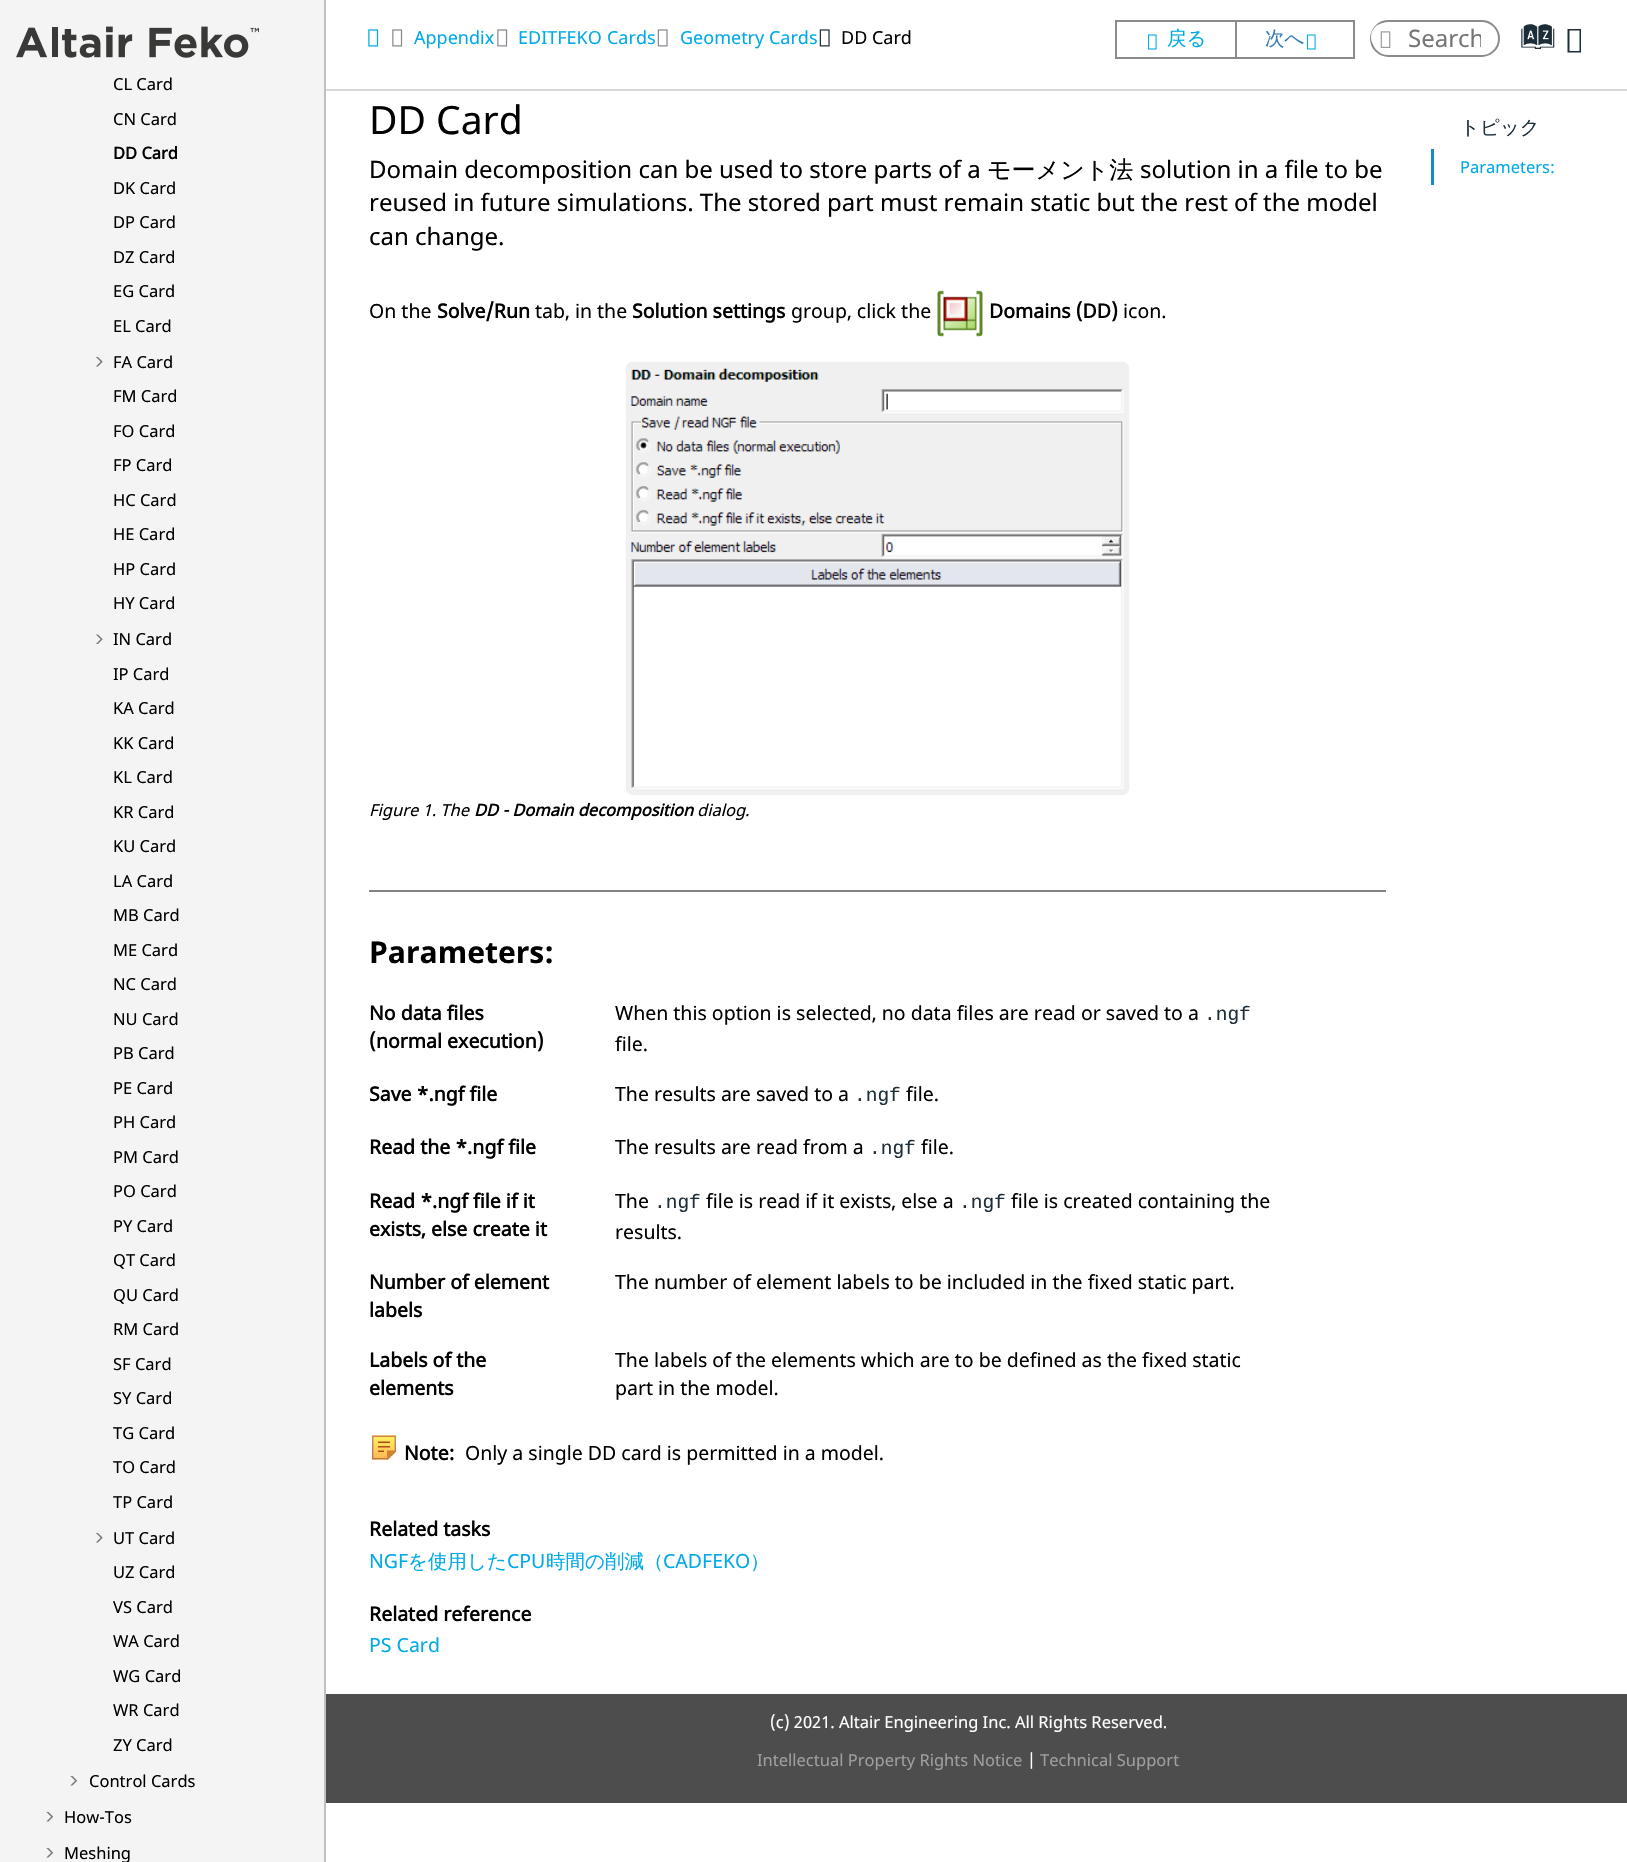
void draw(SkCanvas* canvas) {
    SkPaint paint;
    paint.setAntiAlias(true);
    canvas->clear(0xFFFFFFFF);
    paint.setColor(0xFFF4F4F4);
    canvas->drawRect(SkRect::MakeXYWH(0, 0, 324, 1862), paint);
    paint.setColor(0xFFC0C0C0);
    canvas->drawRect(SkRect::MakeXYWH(324, 0, 2, 1862), paint);
    canvas->drawImageRect(SkImages::DeferredFromEncodedData(SkData::MakeFromFileName("img1.png")), SkRect::MakeXYWH(16, 26, 243, 32), SkSamplingOptions());
    SkFont font1(fontMgr->matchFamilyStyle("Noto Sans", SkFontStyle::Normal()), 16.5f);
    font1.setSubpixel(true);
    paint.setColor(0xFF000000);
    canvas->drawString("CL Card", 113, 90, font1, paint);
    canvas->drawString("CN Card", 113, 125, font1, paint);
    SkFont font2(fontMgr->matchFamilyStyle("Noto Sans", SkFontStyle::Bold()), 16.5f);
    font2.setSubpixel(true);
    canvas->drawString("DD Card", 113, 159, font2, paint);
    canvas->drawString("DK Card", 113, 194, font1, paint);
    canvas->drawString("DP Card", 113, 228, font1, paint);
    canvas->drawString("DZ Card", 113, 263, font1, paint);
    canvas->drawString("EG Card", 113, 297, font1, paint);
    canvas->drawString("EL Card", 113, 332, font1, paint);
    canvas->drawImageRect(SkImages::DeferredFromEncodedData(SkData::MakeFromFileName("img2.png")), SkRect::MakeXYWH(96, 356, 7, 11), SkSamplingOptions());
    canvas->drawString("FA Card", 113, 368, font1, paint);
    canvas->drawString("FM Card", 113, 402, font1, paint);
    canvas->drawString("FO Card", 113, 437, font1, paint);
    canvas->drawString("FP Card", 113, 471, font1, paint);
    canvas->drawString("HC Card", 113, 506, font1, paint);
    canvas->drawString("HE Card", 113, 540, font1, paint);
    canvas->drawString("HP Card", 113, 575, font1, paint);
    canvas->drawString("HY Card", 113, 609, font1, paint);
    canvas->drawImageRect(SkImages::DeferredFromEncodedData(SkData::MakeFromFileName("img3.png")), SkRect::MakeXYWH(96, 634, 7, 10), SkSamplingOptions());
    canvas->drawString("IN Card", 113, 645, font1, paint);
    canvas->drawString("IP Card", 113, 680, font1, paint);
    canvas->drawString("KA Card", 113, 714, font1, paint);
    canvas->drawString("KK Card", 113, 749, font1, paint);
    canvas->drawString("KL Card", 113, 783, font1, paint);
    canvas->drawString("KR Card", 113, 818, font1, paint);
    canvas->drawString("KU Card", 113, 852, font1, paint);
    canvas->drawString("LA Card", 113, 887, font1, paint);
    canvas->drawString("MB Card", 113, 921, font1, paint);
    canvas->drawString("ME Card", 113, 956, font1, paint);
    canvas->drawString("NC Card", 113, 990, font1, paint);
    canvas->drawString("NU Card", 113, 1025, font1, paint);
    canvas->drawString("PB Card", 113, 1059, font1, paint);
    canvas->drawString("PE Card", 113, 1094, font1, paint);
    canvas->drawString("PH Card", 113, 1128, font1, paint);
    canvas->drawString("PM Card", 113, 1163, font1, paint);
    canvas->drawString("PO Card", 113, 1197, font1, paint);
    canvas->drawString("PY Card", 113, 1232, font1, paint);
    canvas->drawString("QT Card", 113, 1266, font1, paint);
    canvas->drawString("QU Card", 113, 1301, font1, paint);
    canvas->drawString("RM Card", 113, 1335, font1, paint);
    canvas->drawString("SF Card", 113, 1370, font1, paint);
    canvas->drawString("SY Card", 113, 1404, font1, paint);
    canvas->drawString("TG Card", 113, 1439, font1, paint);
    canvas->drawString("TO Card", 113, 1473, font1, paint);
    canvas->drawString("TP Card", 113, 1508, font1, paint);
    canvas->drawImageRect(SkImages::DeferredFromEncodedData(SkData::MakeFromFileName("img2.png")), SkRect::MakeXYWH(96, 1532, 7, 11), SkSamplingOptions());
    canvas->drawString("UT Card", 113, 1544, font1, paint);
    canvas->drawString("UZ Card", 113, 1578, font1, paint);
    canvas->drawString("VS Card", 113, 1613, font1, paint);
    canvas->drawString("WA Card", 113, 1647, font1, paint);
    canvas->drawString("WG Card", 113, 1682, font1, paint);
    canvas->drawString("WR Card", 113, 1716, font1, paint);
    canvas->drawString("ZY Card", 113, 1751, font1, paint);
    canvas->drawImageRect(SkImages::DeferredFromEncodedData(SkData::MakeFromFileName("img4.png")), SkRect::MakeXYWH(70, 1775, 7, 11), SkSamplingOptions());
    canvas->drawString("Control Cards", 89, 1787, font1, paint);
    canvas->drawImageRect(SkImages::DeferredFromEncodedData(SkData::MakeFromFileName("img4.png")), SkRect::MakeXYWH(46, 1811, 7, 11), SkSamplingOptions());
    canvas->drawString("How-Tos", 64, 1823, font1, paint);
    canvas->drawImageRect(SkImages::DeferredFromEncodedData(SkData::MakeFromFileName("img4.png")), SkRect::MakeXYWH(46, 1847, 7, 11), SkSamplingOptions());
    canvas->drawString("Meshing", 64, 1859, font1, paint);
    paint.setColor(0xFFD8D8D8);
    canvas->drawRect(SkRect::MakeXYWH(326, 89, 1301, 2), paint);
    canvas->drawImageRect(SkImages::DeferredFromEncodedData(SkData::MakeFromFileName("img5.png")), SkRect::MakeXYWH(368, 29, 11, 18), SkSamplingOptions());
    canvas->drawImageRect(SkImages::DeferredFromEncodedData(SkData::MakeFromFileName("img6.png")), SkRect::MakeXYWH(392, 29, 11, 18), SkSamplingOptions());
    SkFont font3(fontMgr->matchFamilyStyle("Noto Sans", SkFontStyle::Normal()), 18);
    font3.setSubpixel(true);
    paint.setColor(0xFF00AAE6);
    canvas->drawString("Appendix", 414, 44, font3, paint);
    canvas->drawImageRect(SkImages::DeferredFromEncodedData(SkData::MakeFromFileName("img6.png")), SkRect::MakeXYWH(497, 29, 11, 18), SkSamplingOptions());
    canvas->drawString("EDITFEKO", 518, 44, font3, paint);
    canvas->drawString("Cards", 607, 44, font3, paint);
    canvas->drawImageRect(SkImages::DeferredFromEncodedData(SkData::MakeFromFileName("img7.png")), SkRect::MakeXYWH(657, 29, 11, 18), SkSamplingOptions());
    canvas->drawString("Geometry Cards", 680, 44, font3, paint);
    canvas->drawImageRect(SkImages::DeferredFromEncodedData(SkData::MakeFromFileName("img8.png")), SkRect::MakeXYWH(819, 29, 11, 18), SkSamplingOptions());
    paint.setColor(0xFF000000);
    canvas->drawString("DD Card", 841, 44, font3, paint);
    paint.setColor(0xFF8B8B8B);
    canvas->drawRect(SkRect::MakeXYWH(1115, 20, 120, 2), paint);
    canvas->drawRect(SkRect::MakeXYWH(1115, 57, 120, 2), paint);
    canvas->drawRect(SkRect::MakeXYWH(1115, 20, 2, 39), paint);
    canvas->drawImageRect(SkImages::DeferredFromEncodedData(SkData::MakeFromFileName("img9.png")), SkRect::MakeXYWH(1147, 34, 10, 16), SkSamplingOptions());
    SkFont font4(fontMgr->matchFamilyStyle("WenQuanYi Zen Hei", SkFontStyle(500, SkFontStyle::kNormal_Width, SkFontStyle::kUpright_Slant)), 19.5f);
    font4.setSubpixel(true);
    paint.setColor(0xFF00AAE6);
    canvas->drawString("戻る", 1167, 45, font4, paint);
    paint.setStyle(SkPaint::kStroke_Style);
    paint.setStrokeWidth(2);
    paint.setColor(0xFF8B8B8B);
    canvas->drawRect(SkRect::MakeXYWH(1236, 21, 118, 37), paint);
    paint.setStyle(SkPaint::kFill_Style);
    paint.setColor(0xFF347BB7);
    canvas->drawString("次へ", 1265, 45, font4, paint);
    canvas->drawImageRect(SkImages::DeferredFromEncodedData(SkData::MakeFromFileName("img9.png")), SkRect::MakeXYWH(1306, 34, 10, 16), SkSamplingOptions());
    paint.setStyle(SkPaint::kStroke_Style);
    paint.setColor(0xFF8B8B8B);
    canvas->drawRoundRect(SkRect::MakeXYWH(1371, 21, 128, 35), 17.5f, 17.5f, paint);
    paint.setStyle(SkPaint::kFill_Style);
    paint.setColor(0xFFFFFFFF);
    canvas->drawRoundRect(SkRect::MakeXYWH(1371, 23, 30, 28), 14, 14, paint);
    canvas->drawImageRect(SkImages::DeferredFromEncodedData(SkData::MakeFromFileName("img10.png")), SkRect::MakeXYWH(1380, 31, 11, 17), SkSamplingOptions());
    canvas->save();
    canvas->clipRect(SkRect::MakeXYWH(1407, 21, 74, 33));
    SkFont font5(fontMgr->matchFamilyStyle("Noto Sans", SkFontStyle::Normal()), 24);
    font5.setSubpixel(true);
    paint.setColor(0xFF757575);
    canvas->drawString("Search", 1408, 47, font5, paint);
    canvas->restore();
    SkFont font6(fontMgr->matchFamilyStyle("Oxygen", SkFontStyle::Normal()), 35);
    font6.setSubpixel(true);
    paint.setColor(0xFF1D2E38);
    canvas->drawString("a", 1525, 53, font6, paint);
    canvas->drawPath(SkPathBuilder().moveTo(1567.5f, 52.5f).lineTo(1567.5f, 29).lineTo(1581, 29).lineTo(1581, 52.5f).close().moveTo(1569.5f, 51).lineTo(1579.5f, 51).lineTo(1579.5f, 30.5f).lineTo(1569.5f, 30.5f).close().detach(), paint);
    SkFont font7(fontMgr->matchFamilyStyle("Noto Sans", SkFontStyle::Normal()), 39);
    font7.setSubpixel(true);
    paint.setColor(0xFF000000);
    canvas->drawString("DD Card", 369, 134, font7, paint);
    canvas->drawString("Domain decomposition can be used to store parts of a", 369, 178, font5, paint);
    SkFont font8(fontMgr->matchFamilyStyle("WenQuanYi Zen Hei", SkFontStyle(500, SkFontStyle::kNormal_Width, SkFontStyle::kUpright_Slant)), 24);
    font8.setSubpixel(true);
    canvas->drawString("モーメント法", 987, 178, font8, paint);
    canvas->drawString("solution in a file to be", 1140, 178, font5, paint);
    canvas->drawString("reused in future simulations. The stored part must remain static but the rest of the model", 369, 211, font5, paint);
    canvas->drawString("can change.", 369, 245, font5, paint);
    SkFont font9(fontMgr->matchFamilyStyle("Noto Sans", SkFontStyle::Normal()), 19.5f);
    font9.setSubpixel(true);
    canvas->drawString("On the", 369, 318, font9, paint);
    SkFont font10(fontMgr->matchFamilyStyle("Noto Sans", SkFontStyle::Bold()), 19.5f);
    font10.setSubpixel(true);
    canvas->drawString("Solve/Run", 437, 318, font10, paint);
    canvas->drawString("tab, in the", 535, 318, font9, paint);
    canvas->drawString("Solution settings", 632, 318, font10, paint);
    canvas->drawString("group, click the", 791, 318, font9, paint);
    canvas->drawImageRect(SkImages::DeferredFromEncodedData(SkData::MakeFromFileName("img11.png")), SkRect::MakeXYWH(937, 290, 46, 47), SkSamplingOptions());
    canvas->drawString("Domains (DD)", 989, 318, font10, paint);
    canvas->drawString("icon.", 1123, 318, font9, paint);
    canvas->drawImageRect(SkImages::DeferredFromEncodedData(SkData::MakeFromFileName("img12.png")), SkRect::MakeXYWH(625, 361, 505, 434), SkSamplingOptions());
    SkFont font11(fontMgr->matchFamilyStyle("Noto Sans", SkFontStyle::Italic()), 16.5f);
    font11.setSubpixel(true);
    canvas->drawString("Figure 1. The", 369, 816, font11, paint);
    SkFont font12(fontMgr->matchFamilyStyle("Noto Sans", SkFontStyle::BoldItalic()), 16.5f);
    font12.setSubpixel(true);
    canvas->drawString("DD - Domain decomposition", 474, 816, font12, paint);
    canvas->drawString("dialog.", 697, 816, font11, paint);
    paint.setColor(0xFF828282);
    canvas->drawRect(SkRect::MakeXYWH(369, 890, 1017, 2), paint);
    SkFont font13(fontMgr->matchFamilyStyle("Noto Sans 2", SkFontStyle::Bold()), 30);
    font13.setSubpixel(true);
    paint.setColor(0xFF000000);
    canvas->drawString("Parameters:", 369, 963, font13, paint);
    canvas->drawString("No data files", 369, 1020, font10, paint);
    canvas->drawString("(normal execution)", 369, 1048, font10, paint);
    canvas->drawString("When this option is selected, no data files are read or saved to a", 615, 1020, font9, paint);
    SkFont font14(fontMgr->matchFamilyStyle("Liberation Mono", SkFontStyle::Normal()), 19.5f);
    font14.setSubpixel(true);
    paint.setColor(0xFF1D2E38);
    canvas->drawString(".ngf", 1204, 1020, font14, paint);
    paint.setColor(0xFF000000);
    canvas->drawString("file.", 615, 1051, font9, paint);
    canvas->drawString("Save *.ngf file", 369, 1101, font10, paint);
    canvas->drawString("The results are saved to a", 615, 1101, font9, paint);
    paint.setColor(0xFF1D2E38);
    canvas->drawString(".ngf", 854, 1101, font14, paint);
    paint.setColor(0xFF000000);
    canvas->drawString("file.", 906, 1101, font9, paint);
    canvas->drawString("Read the *.ngf file", 369, 1154, font10, paint);
    canvas->drawString("The results are read from a", 615, 1154, font9, paint);
    paint.setColor(0xFF1D2E38);
    canvas->drawString(".ngf", 869, 1154, font14, paint);
    paint.setColor(0xFF000000);
    canvas->drawString("file.", 921, 1154, font9, paint);
    canvas->drawString("Read *.ngf file if it", 369, 1208, font10, paint);
    canvas->drawString("exists, else create it", 369, 1236, font10, paint);
    canvas->drawString("The", 615, 1208, font9, paint);
    paint.setColor(0xFF1D2E38);
    canvas->drawString(".ngf", 654, 1208, font14, paint);
    paint.setColor(0xFF000000);
    canvas->drawString("file is read if it exists, else a", 706, 1208, font9, paint);
    paint.setColor(0xFF1D2E38);
    canvas->drawString(".ngf", 959, 1208, font14, paint);
    paint.setColor(0xFF000000);
    canvas->drawString("file is created containing the", 1011, 1208, font9, paint);
    canvas->drawString("results.", 615, 1239, font9, paint);
    canvas->drawString("Number of element", 369, 1289, font10, paint);
    canvas->drawString("labels", 369, 1317, font10, paint);
    canvas->drawString("The number of element labels to be included in the fixed static part.", 615, 1289, font9, paint);
    canvas->drawString("Labels of the", 369, 1367, font10, paint);
    canvas->drawString("elements", 369, 1395, font10, paint);
    canvas->drawString("The labels of the elements which are to be defined as the fixed static", 615, 1367, font9, paint);
    canvas->drawString("part in the model.", 615, 1395, font9, paint);
    canvas->drawImageRect(SkImages::DeferredFromEncodedData(SkData::MakeFromFileName("img13.png")), SkRect::MakeXYWH(372, 1435, 24, 25), SkSamplingOptions());
    canvas->drawString("Note:", 404, 1460, font10, paint);
    canvas->drawString("Only a single DD card is permitted in a model.", 465, 1460, font9, paint);
    canvas->drawString("Related tasks", 369, 1536, font10, paint);
    paint.setColor(0xFF00AAE6);
    canvas->drawString("NGF", 369, 1568, font9, paint);
    canvas->drawString("を使用した", 408, 1568, font4, paint);
    canvas->drawString("CPU", 507, 1568, font9, paint);
    canvas->drawString("時間の削減（", 546, 1568, font4, paint);
    canvas->drawString("CADFEKO", 663, 1568, font9, paint);
    canvas->drawString("）", 750, 1568, font4, paint);
    paint.setColor(0xFF000000);
    canvas->drawString("Related reference", 369, 1621, font10, paint);
    paint.setColor(0xFF00AAE6);
    canvas->drawString("PS Card", 369, 1652, font9, paint);
    paint.setColor(0xFF1D2E38);
    canvas->drawString("トピック", 1460, 134, font4, paint);
    paint.setColor(0xFF0E8FBC);
    canvas->drawRect(SkRect::MakeXYWH(1431, 149, 3, 36), paint);
    paint.setColor(0xFF00AAE6);
    canvas->drawString("Parameters:", 1460, 173, font1, paint);
    paint.setColor(0xFF4D4D4D);
    canvas->drawRect(SkRect::MakeXYWH(326, 1694, 1301, 109), paint);
    paint.setColor(0xFFFFFFFF);
    canvas->drawString("(c) 2021. Altair Engineering Inc. All Rights Reserved.", 770, 1728, font1, paint);
    paint.setColor(0xFF9F9F9F);
    canvas->drawString("Intellectual Property Rights Notice", 757, 1766, font1, paint);
    paint.setColor(0xFFFFFFFF);
    canvas->drawString("|", 1027, 1766, font1, paint);
    paint.setColor(0xFF9F9F9F);
    canvas->drawString("Technical Support", 1040, 1766, font1, paint);
}
